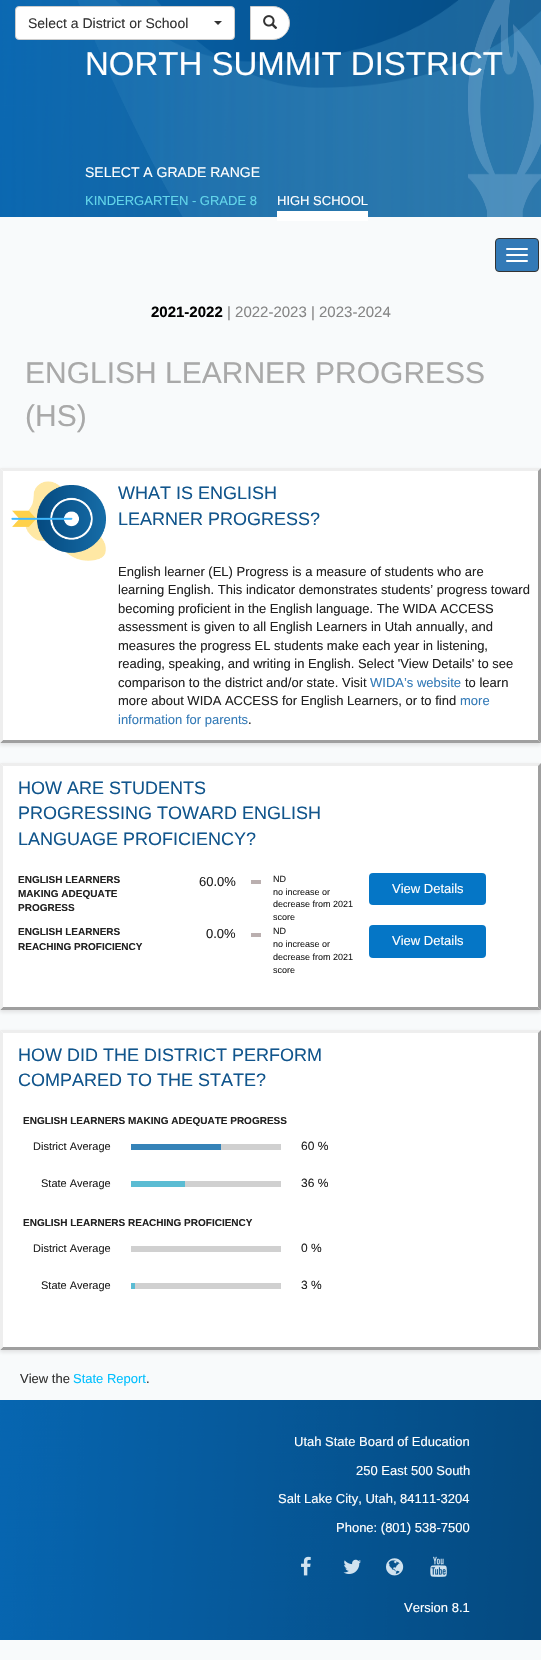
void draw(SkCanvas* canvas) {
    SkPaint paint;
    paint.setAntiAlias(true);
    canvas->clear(0xFFF8FAFB);
    canvas->drawImageRect(SkImages::DeferredFromEncodedData(SkData::MakeFromFileName("img1.png")), SkRect::MakeXYWH(0, 0, 541, 217), SkSamplingOptions());
    paint.setColor(0xFFFFFFFF);
    canvas->drawRoundRect(SkRect::MakeXYWH(15.5f, 6.5f, 219, 33), 3.5f, 3.5f, paint);
    paint.setStyle(SkPaint::kStroke_Style);
    paint.setStrokeWidth(1);
    paint.setColor(0xFFCCCCCC);
    canvas->drawRoundRect(SkRect::MakeXYWH(15.5f, 6.5f, 219, 33), 3.5f, 3.5f, paint);
    SkFont font1(fontMgr->matchFamilyStyle("Liberation Sans", SkFontStyle::Normal()), 14);
    font1.setSubpixel(true);
    paint.setStyle(SkPaint::kFill_Style);
    paint.setColor(0xFF333333);
    canvas->drawString("Select a District or School", 28, 28, font1, paint);
    canvas->drawPath(SkPathBuilder().moveTo(214, 21).lineTo(222, 21).lineTo(218, 25).close().detach(), paint);
    paint.setColor(0xFFFFFFFF);
    canvas->drawPath(SkPathBuilder().moveTo(250.5f, 6.5f).lineTo(273, 6.5f).cubicTo(282, 6.5f, 289.5f, 14, 289.5f, 23).cubicTo(289.5f, 32, 282, 39.5f, 273, 39.5f).lineTo(250.5f, 39.5f).close().detach(), paint);
    paint.setStyle(SkPaint::kStroke_Style);
    paint.setColor(0xFFCCCCCC);
    canvas->drawPath(SkPathBuilder().moveTo(250.5f, 6.5f).lineTo(273, 6.5f).cubicTo(282, 6.5f, 289.5f, 14, 289.5f, 23).cubicTo(289.5f, 32, 282, 39.5f, 273, 39.5f).lineTo(250.5f, 39.5f).close().detach(), paint);
    canvas->drawImageRect(SkImages::DeferredFromEncodedData(SkData::MakeFromFileName("img2.png")), SkRect::MakeXYWH(263, 15, 15, 14), SkSamplingOptions());
    SkFont font2(fontMgr->matchFamilyStyle("Liberation Sans", SkFontStyle::Normal()), 33);
    font2.setSubpixel(true);
    paint.setStyle(SkPaint::kFill_Style);
    paint.setColor(0xFFFFFFFF);
    canvas->drawString("NORTH SUMMIT DISTRICT", 85, 75, font2, paint);
    canvas->drawString("SELECT A GRADE RANGE", 85, 177, font1, paint);
    SkFont font3(fontMgr->matchFamilyStyle("Liberation Sans", SkFontStyle::Normal()), 13);
    font3.setSubpixel(true);
    paint.setColor(0xFF62D5EA);
    canvas->drawString("KINDERGARTEN - GRADE 8", 85, 205, font3, paint);
    paint.setColor(0xFFFFFFFF);
    canvas->drawString("HIGH SCHOOL", 277, 205, font3, paint);
    canvas->drawRect(SkRect::MakeXYWH(277, 211, 91, 10), paint);
    paint.setColor(0xFF337AB7);
    canvas->drawRoundRect(SkRect::MakeXYWH(495.5f, 238.5f, 43, 33), 3.5f, 3.5f, paint);
    paint.setStyle(SkPaint::kStroke_Style);
    paint.setColor(0xFF333333);
    canvas->drawRoundRect(SkRect::MakeXYWH(495.5f, 238.5f, 43, 33), 3.5f, 3.5f, paint);
    paint.setStyle(SkPaint::kFill_Style);
    paint.setColor(0xFFFFFFFF);
    canvas->drawRoundRect(SkRect::MakeXYWH(506, 248, 22, 2), 1, 1, paint);
    canvas->drawRoundRect(SkRect::MakeXYWH(506, 254, 22, 2), 1, 1, paint);
    canvas->drawRoundRect(SkRect::MakeXYWH(506, 260, 22, 2), 1, 1, paint);
    SkFont font4(fontMgr->matchFamilyStyle("Liberation Sans", SkFontStyle::Bold()), 15);
    font4.setSubpixel(true);
    paint.setColor(0xFF000000);
    canvas->drawString("2021-2022", 151, 317, font4, paint);
    SkFont font5(fontMgr->matchFamilyStyle("Liberation Sans", SkFontStyle::Normal()), 15);
    font5.setSubpixel(true);
    paint.setColor(0xFF858585);
    canvas->drawString("| 2022-2023 | 2023-2024", 227, 317, font5, paint);
    SkFont font6(fontMgr->matchFamilyStyle("Liberation Sans", SkFontStyle::Normal()), 30);
    font6.setSubpixel(true);
    paint.setColor(0xFFA9A9A9);
    canvas->drawString("ENGLISH LEARNER PROGRESS", 25, 383, font6, paint);
    canvas->drawString("(HS)", 25, 426, font6, paint);
    paint.setColor(0x1F222222);
    paint.setMaskFilter(SkMaskFilter::MakeBlur(kNormal_SkBlurStyle, 2));
    canvas->drawRect(SkRect::MakeXYWH(0, 470, 541, 275), paint);
    paint.setMaskFilter(nullptr);
    paint.setColor(0xFFFFFFFF);
    canvas->drawRect(SkRect::MakeXYWH(0, 468, 541, 275), paint);
    paint.setColor(0xFFEEEEEE);
    canvas->drawPath(SkPathBuilder().moveTo(0, 468).lineTo(541, 468).lineTo(538, 471).lineTo(3, 471).close().detach(), paint);
    paint.setColor(0xFF9F9F9F);
    canvas->drawPath(SkPathBuilder().moveTo(541, 468).lineTo(541, 743).lineTo(538, 740).lineTo(538, 471).close().detach(), paint);
    canvas->drawPath(SkPathBuilder().moveTo(541, 743).lineTo(0, 743).lineTo(3, 740).lineTo(538, 740).close().detach(), paint);
    paint.setColor(0xFFEEEEEE);
    canvas->drawPath(SkPathBuilder().moveTo(0, 743).lineTo(0, 468).lineTo(3, 471).lineTo(3, 740).close().detach(), paint);
    canvas->drawImageRect(SkImages::DeferredFromEncodedData(SkData::MakeFromFileName("img3.png")), SkRect::MakeXYWH(11, 481, 95, 80), SkSamplingOptions());
    SkFont font7(fontMgr->matchFamilyStyle("Liberation Sans", SkFontStyle::Normal()), 18);
    font7.setSubpixel(true);
    paint.setColor(0xFF11558C);
    canvas->drawString("WHAT IS ENGLISH", 118, 499, font7, paint);
    canvas->drawString("LEARNER PROGRESS?", 118, 525, font7, paint);
    paint.setColor(0xFF222222);
    canvas->drawString("English learner (EL) Progress is a measure of students who are", 118, 576, font3, paint);
    canvas->drawString("learning English. This indicator demonstrates students’ progress toward", 118, 594, font3, paint);
    canvas->drawString("becoming proficient in the English language. The WIDA ACCESS", 118, 613, font3, paint);
    canvas->drawString("assessment is given to all English Learners in Utah annually, and", 118, 631, font3, paint);
    canvas->drawString("measures the progress EL students make each year in listening,", 118, 650, font3, paint);
    canvas->drawString("reading, speaking, and writing in English. Select 'View Details' to see", 118, 668, font3, paint);
    canvas->drawString("comparison to the district and/or state. Visit", 118, 687, font3, paint);
    paint.setColor(0xFF337AB7);
    canvas->drawString("WIDA’s website", 370, 687, font3, paint);
    paint.setColor(0xFF222222);
    canvas->drawString("to learn", 465, 687, font3, paint);
    canvas->drawString("more about WIDA ACCESS for English Learners, or to find", 118, 705, font3, paint);
    paint.setColor(0xFF337AB7);
    canvas->drawString("more", 460, 705, font3, paint);
    canvas->drawString("information for parents", 118, 724, font3, paint);
    paint.setColor(0xFF222222);
    canvas->drawString(".", 248, 724, font3, paint);
    paint.setColor(0x1F222222);
    paint.setMaskFilter(SkMaskFilter::MakeBlur(kNormal_SkBlurStyle, 2));
    canvas->drawRect(SkRect::MakeXYWH(0, 765, 541, 247), paint);
    paint.setMaskFilter(nullptr);
    paint.setColor(0xFFFFFFFF);
    canvas->drawRect(SkRect::MakeXYWH(0, 763, 541, 247), paint);
    paint.setColor(0xFFEEEEEE);
    canvas->drawPath(SkPathBuilder().moveTo(0, 763).lineTo(541, 763).lineTo(538, 766).lineTo(3, 766).close().detach(), paint);
    paint.setColor(0xFF9F9F9F);
    canvas->drawPath(SkPathBuilder().moveTo(541, 763).lineTo(541, 1010).lineTo(538, 1007).lineTo(538, 766).close().detach(), paint);
    canvas->drawPath(SkPathBuilder().moveTo(541, 1010).lineTo(0, 1010).lineTo(3, 1007).lineTo(538, 1007).close().detach(), paint);
    paint.setColor(0xFFEEEEEE);
    canvas->drawPath(SkPathBuilder().moveTo(0, 1010).lineTo(0, 763).lineTo(3, 766).lineTo(3, 1007).close().detach(), paint);
    paint.setColor(0xFF11558C);
    canvas->drawString("HOW ARE STUDENTS", 18, 794, font7, paint);
    canvas->drawString("PROGRESSING TOWARD ENGLISH", 18, 819, font7, paint);
    canvas->drawString("LANGUAGE PROFICIENCY?", 18, 845, font7, paint);
    SkFont font8(fontMgr->matchFamilyStyle("Liberation Sans", SkFontStyle::Bold()), 10);
    font8.setSubpixel(true);
    paint.setColor(0xFF222222);
    canvas->drawString("ENGLISH LEARNERS", 18, 883, font8, paint);
    canvas->drawString("MAKING ADEQUATE", 18, 897, font8, paint);
    canvas->drawString("PROGRESS", 18, 911, font8, paint);
    canvas->drawString("60.0%", 199, 886, font3, paint);
    paint.setColor(0xFFBAAFAF);
    canvas->drawRect(SkRect::MakeXYWH(251, 880, 10, 4), paint);
    SkFont font9(fontMgr->matchFamilyStyle("Liberation Sans", SkFontStyle::Normal()), 9);
    font9.setSubpixel(true);
    paint.setColor(0xFF222222);
    canvas->drawString("ND", 273, 882, font9, paint);
    canvas->drawString("no increase or", 273, 895, font9, paint);
    canvas->drawString("decrease from 2021", 273, 907, font9, paint);
    canvas->drawString("score", 273, 920, font9, paint);
    paint.setColor(0xFF0576C6);
    canvas->drawRoundRect(SkRect::MakeXYWH(369, 873, 117, 32), 4, 4, paint);
    paint.setColor(0xFFFFFFFF);
    canvas->drawString("View Details", 392, 893, font3, paint);
    paint.setColor(0xFF222222);
    canvas->drawString("ENGLISH LEARNERS", 18, 935, font8, paint);
    canvas->drawString("REACHING PROFICIENCY", 18, 950, font8, paint);
    canvas->drawString("0.0%", 206, 938, font3, paint);
    paint.setColor(0xFFBAAFAF);
    canvas->drawRect(SkRect::MakeXYWH(251, 933, 10, 4), paint);
    paint.setColor(0xFF222222);
    canvas->drawString("ND", 273, 934, font9, paint);
    canvas->drawString("no increase or", 273, 947, font9, paint);
    canvas->drawString("decrease from 2021", 273, 960, font9, paint);
    canvas->drawString("score", 273, 973, font9, paint);
    paint.setColor(0xFF0576C6);
    canvas->drawRoundRect(SkRect::MakeXYWH(369, 925, 117, 33), 4, 4, paint);
    paint.setColor(0xFFFFFFFF);
    canvas->drawString("View Details", 392, 945, font3, paint);
    paint.setColor(0x1F222222);
    paint.setMaskFilter(SkMaskFilter::MakeBlur(kNormal_SkBlurStyle, 2));
    canvas->drawRect(SkRect::MakeXYWH(0, 1032, 541, 320), paint);
    paint.setMaskFilter(nullptr);
    paint.setColor(0xFFFFFFFF);
    canvas->drawRect(SkRect::MakeXYWH(0, 1030, 541, 320), paint);
    paint.setColor(0xFFEEEEEE);
    canvas->drawPath(SkPathBuilder().moveTo(0, 1030).lineTo(541, 1030).lineTo(538, 1033).lineTo(3, 1033).close().detach(), paint);
    paint.setColor(0xFF9F9F9F);
    canvas->drawPath(SkPathBuilder().moveTo(541, 1030).lineTo(541, 1350).lineTo(538, 1347).lineTo(538, 1033).close().detach(), paint);
    canvas->drawPath(SkPathBuilder().moveTo(541, 1350).lineTo(0, 1350).lineTo(3, 1347).lineTo(538, 1347).close().detach(), paint);
    paint.setColor(0xFFEEEEEE);
    canvas->drawPath(SkPathBuilder().moveTo(0, 1350).lineTo(0, 1030).lineTo(3, 1033).lineTo(3, 1347).close().detach(), paint);
    paint.setColor(0xFF11558C);
    canvas->drawString("HOW DID THE DISTRICT PERFORM", 18, 1061, font7, paint);
    canvas->drawString("COMPARED TO THE STATE?", 18, 1086, font7, paint);
    paint.setColor(0xFF222222);
    canvas->drawString("ENGLISH LEARNERS MAKING ADEQUATE PROGRESS", 23, 1124, font8, paint);
    SkFont font10(fontMgr->matchFamilyStyle("Liberation Sans", SkFontStyle::Normal()), 11);
    font10.setSubpixel(true);
    canvas->drawString("District Average", 33, 1150, font10, paint);
    paint.setColor(0xFF3583B8);
    canvas->drawRect(SkRect::MakeXYWH(131, 1144, 90, 6), paint);
    paint.setColor(0xFFD0D0D0);
    canvas->drawRect(SkRect::MakeXYWH(221, 1144, 60, 6), paint);
    SkFont font11(fontMgr->matchFamilyStyle("Liberation Sans", SkFontStyle::Normal()), 12);
    font11.setSubpixel(true);
    paint.setColor(0xFF222222);
    canvas->drawString("60 %", 301, 1150, font11, paint);
    canvas->drawString("State Average", 41, 1187, font10, paint);
    paint.setColor(0xFF5BBCD3);
    canvas->drawRect(SkRect::MakeXYWH(131, 1181, 54, 6), paint);
    paint.setColor(0xFFD0D0D0);
    canvas->drawRect(SkRect::MakeXYWH(185, 1181, 96, 6), paint);
    paint.setColor(0xFF222222);
    canvas->drawString("36 %", 301, 1187, font11, paint);
    canvas->drawString("ENGLISH LEARNERS REACHING PROFICIENCY", 23, 1226, font8, paint);
    canvas->drawString("District Average", 33, 1252, font10, paint);
    paint.setColor(0xFFD0D0D0);
    canvas->drawRect(SkRect::MakeXYWH(131, 1246, 150, 6), paint);
    paint.setColor(0xFF222222);
    canvas->drawString("0 %", 301, 1252, font11, paint);
    canvas->drawString("State Average", 41, 1289, font10, paint);
    paint.setColor(0xFF5BBCD3);
    canvas->drawRect(SkRect::MakeXYWH(131, 1283, 4, 6), paint);
    paint.setColor(0xFFD0D0D0);
    canvas->drawRect(SkRect::MakeXYWH(135, 1283, 146, 6), paint);
    paint.setColor(0xFF222222);
    canvas->drawString("3 %", 301, 1289, font11, paint);
    paint.setColor(0xFF333333);
    canvas->drawString("View the", 20, 1383, font3, paint);
    paint.setColor(0xFF00BFFF);
    canvas->drawString("State Report", 73, 1383, font3, paint);
    paint.setColor(0xFF333333);
    canvas->drawString(".", 146, 1383, font3, paint);
    canvas->drawImageRect(SkImages::DeferredFromEncodedData(SkData::MakeFromFileName("img4.png")), SkRect::MakeXYWH(0, 1400, 541, 240), SkSamplingOptions());
    paint.setColor(0xFFFFFFFF);
    canvas->drawString("Utah State Board of Education", 294, 1446, font3, paint);
    canvas->drawString("250 East 500 South", 356, 1475, font3, paint);
    canvas->drawString("Salt Lake City, Utah, 84111-3204", 278, 1503, font3, paint);
    canvas->drawString("Phone: (801) 538-7500", 336, 1532, font3, paint);
    canvas->drawImageRect(SkImages::DeferredFromEncodedData(SkData::MakeFromFileName("img5.png")), SkRect::MakeXYWH(301, 1556, 10, 20), SkSamplingOptions());
    canvas->drawImageRect(SkImages::DeferredFromEncodedData(SkData::MakeFromFileName("img6.png")), SkRect::MakeXYWH(343, 1559, 18, 15), SkSamplingOptions());
    canvas->drawImageRect(SkImages::DeferredFromEncodedData(SkData::MakeFromFileName("img7.png")), SkRect::MakeXYWH(386, 1558, 18, 18), SkSamplingOptions());
    canvas->drawImageRect(SkImages::DeferredFromEncodedData(SkData::MakeFromFileName("img8.png")), SkRect::MakeXYWH(430, 1556, 17, 21), SkSamplingOptions());
    canvas->drawString("Version 8.1", 404, 1612, font3, paint);
}
